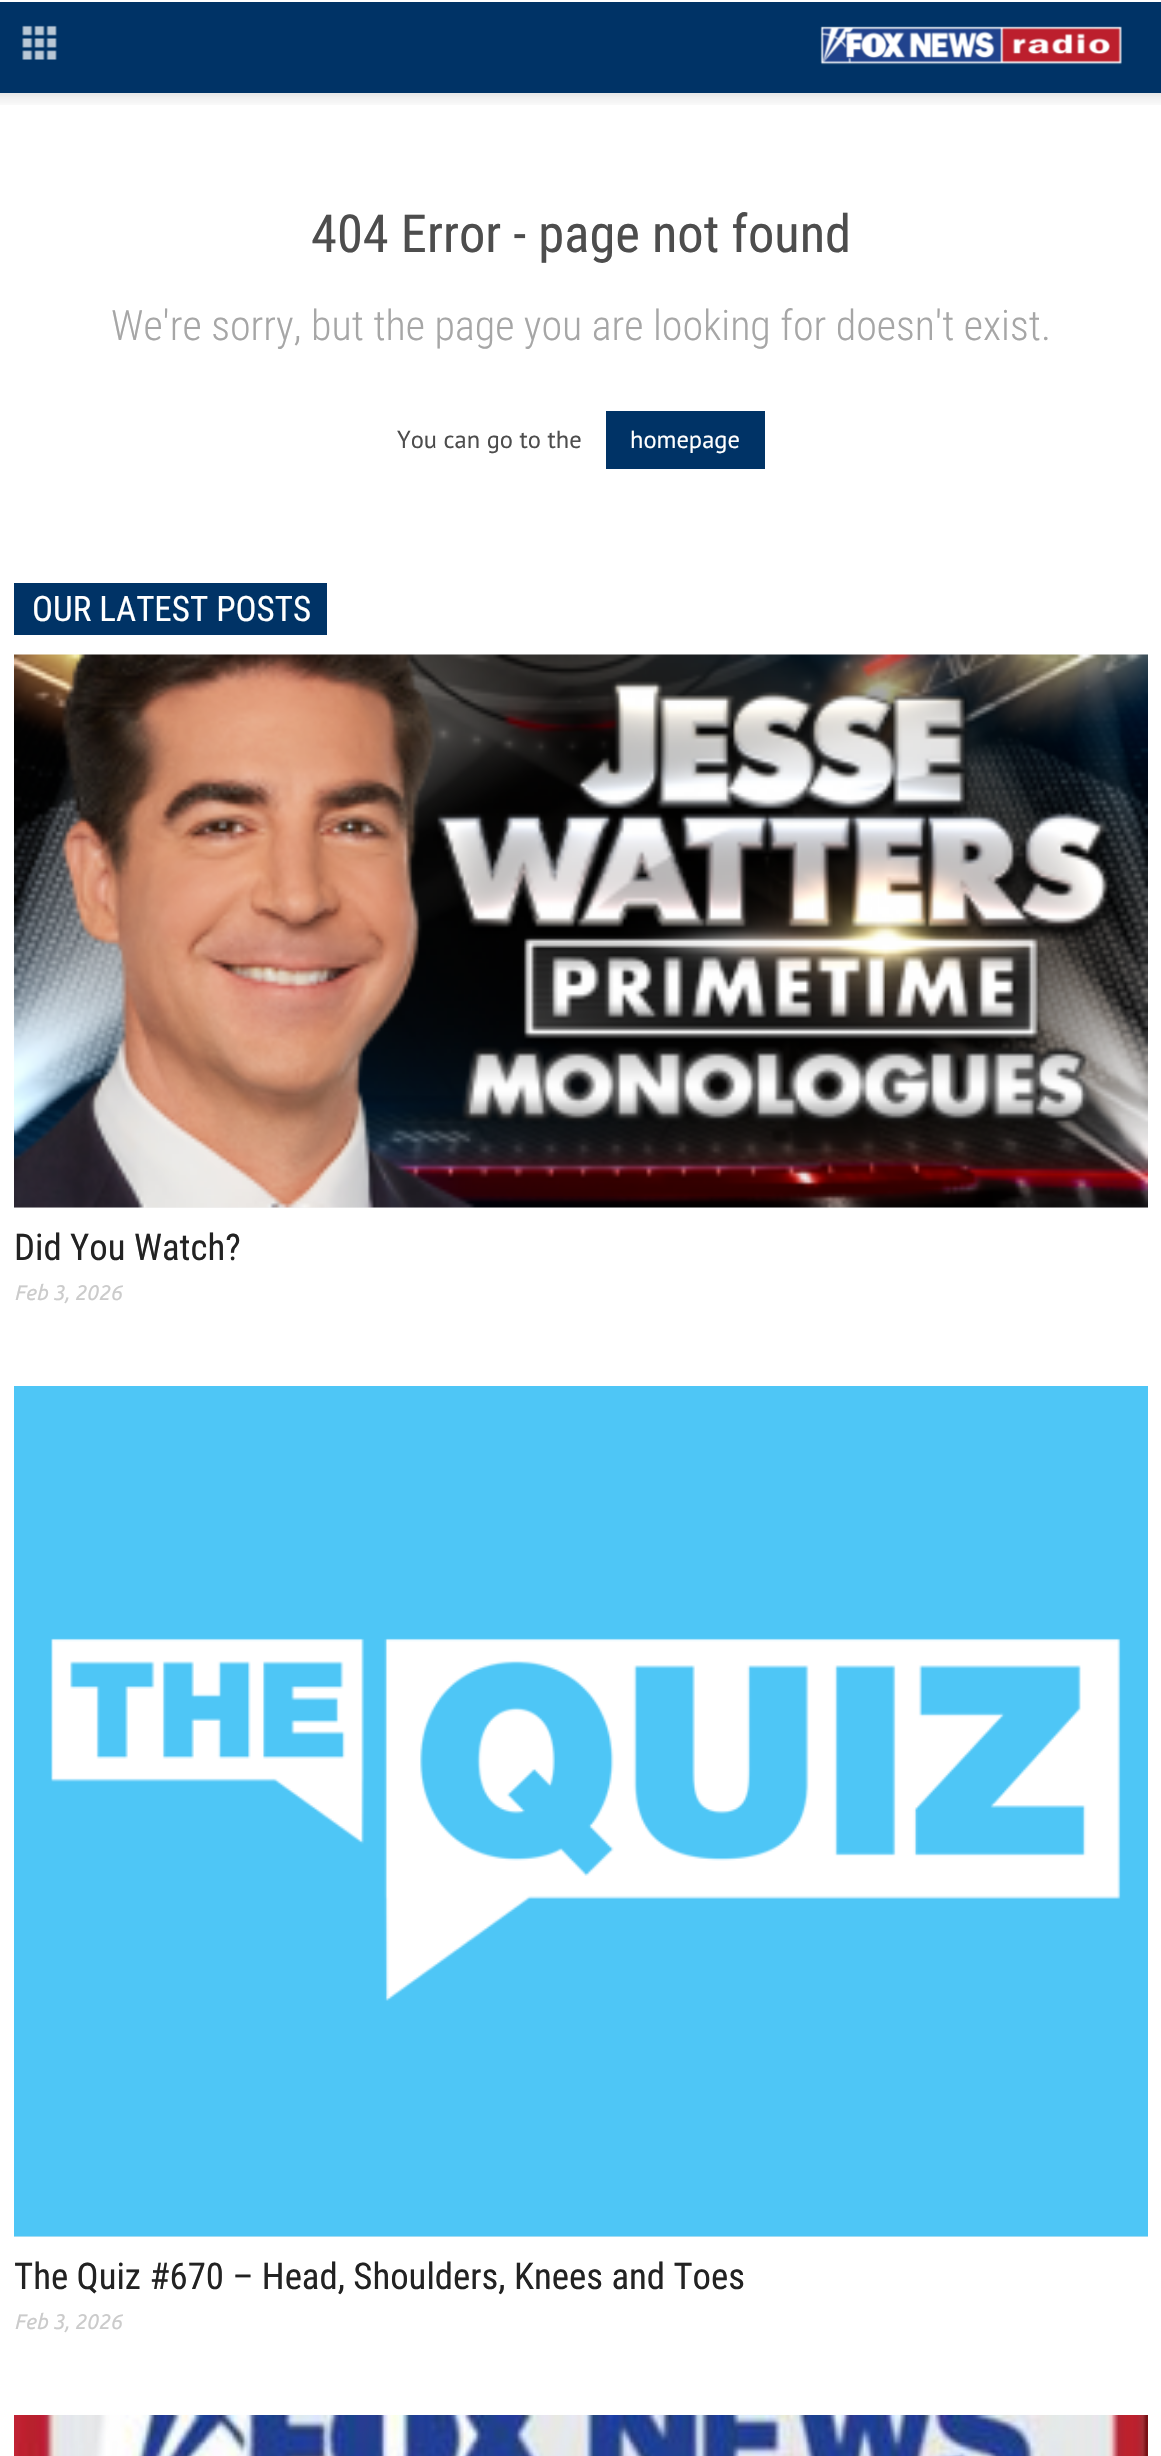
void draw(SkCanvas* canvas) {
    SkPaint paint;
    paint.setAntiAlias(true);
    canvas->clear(0xFFFFFFFF);
    paint.setColor(0xFF003366);
    canvas->drawRect(SkRect::MakeXYWH(0, 2, 1161, 91), paint);
    canvas->drawImageRect(SkImages::DeferredFromEncodedData(SkData::MakeFromFileName("img1.png")), SkRect::MakeXYWH(22, 25, 35, 35), SkSamplingOptions());
    canvas->drawImageRect(SkImages::DeferredFromEncodedData(SkData::MakeFromFileName("img2.png")), SkRect::MakeXYWH(820, 26, 302, 39), SkSamplingOptions());
    canvas->drawImageRect(SkImages::DeferredFromEncodedData(SkData::MakeFromFileName("img3.png")), SkRect::MakeXYWH(0, 93, 1161, 12), SkSamplingOptions());
    SkFont font1(fontMgr->matchFamilyStyle("Roboto Condensed", SkFontStyle::Normal()), 52.5f);
    font1.setSubpixel(true);
    paint.setColor(0xFF4D4D4D);
    canvas->drawString("404 Error - page not found", 311, 252, font1, paint);
    SkFont font2(fontMgr->matchFamilyStyle("Roboto Condensed", SkFontStyle(300, SkFontStyle::kNormal_Width, SkFontStyle::kUpright_Slant)), 42);
    font2.setSubpixel(true);
    paint.setColor(0xFFA6A6A6);
    canvas->drawString("We're sorry, but the page you are looking for doesn't exist.", 111, 340, font2, paint);
    SkFont font3(fontMgr->matchFamilyStyle("PT Sans", SkFontStyle::Normal()), 24.5f);
    font3.setSubpixel(true);
    paint.setColor(0xFF4D4D4D);
    canvas->drawString("You can go to the", 397, 448, font3, paint);
    paint.setColor(0xFF003366);
    canvas->drawRect(SkRect::MakeXYWH(606, 411, 159, 58), paint);
    paint.setColor(0xFFFFFFFF);
    canvas->drawString("homepage", 630, 448, font3, paint);
    paint.setColor(0xFF003366);
    canvas->drawRect(SkRect::MakeXYWH(14, 583, 313, 52), paint);
    SkFont font4(fontMgr->matchFamilyStyle("Roboto Condensed", SkFontStyle::Normal()), 35);
    font4.setSubpixel(true);
    paint.setColor(0xFFFFFFFF);
    canvas->drawString("OUR LATEST POSTS", 32, 621, font4, paint);
    paint.setColor(0xFFF2F2F2);
    canvas->drawRect(SkRect::MakeXYWH(14, 1207, 1134, 1), paint);
    canvas->drawImageRect(SkImages::DeferredFromEncodedData(SkData::MakeFromFileName("img4.png")), SkRect::MakeXYWH(14, 654, 1134, 554), SkSamplingOptions());
    SkFont font5(fontMgr->matchFamilyStyle("Roboto Condensed", SkFontStyle::Normal()), 36.75f);
    font5.setSubpixel(true);
    paint.setColor(0xFF222222);
    canvas->drawString("Did You Watch?", 14, 1260, font5, paint);
    SkFont font6(fontMgr->matchFamilyStyle("Ubuntu", SkFontStyle::Italic()), 21);
    font6.setSubpixel(true);
    paint.setColor(0xFFCBCBCB);
    canvas->drawString("Feb 3, 2026", 14, 1300, font6, paint);
    paint.setColor(0xFFF2F2F2);
    canvas->drawRect(SkRect::MakeXYWH(14, 2236, 1134, 1), paint);
    canvas->drawImageRect(SkImages::DeferredFromEncodedData(SkData::MakeFromFileName("img5.png")), SkRect::MakeXYWH(14, 1386, 1134, 851), SkSamplingOptions());
    paint.setColor(0xFF222222);
    canvas->drawString("The Quiz #670 – Head, Shoulders, Knees and Toes", 14, 2289, font5, paint);
    paint.setColor(0xFFCBCBCB);
    canvas->drawString("Feb 3, 2026", 14, 2329, font6, paint);
    canvas->drawImageRect(SkImages::DeferredFromEncodedData(SkData::MakeFromFileName("img6.png")), SkRect::MakeXYWH(14, 2415, 1134, 41), SkSamplingOptions());
}
